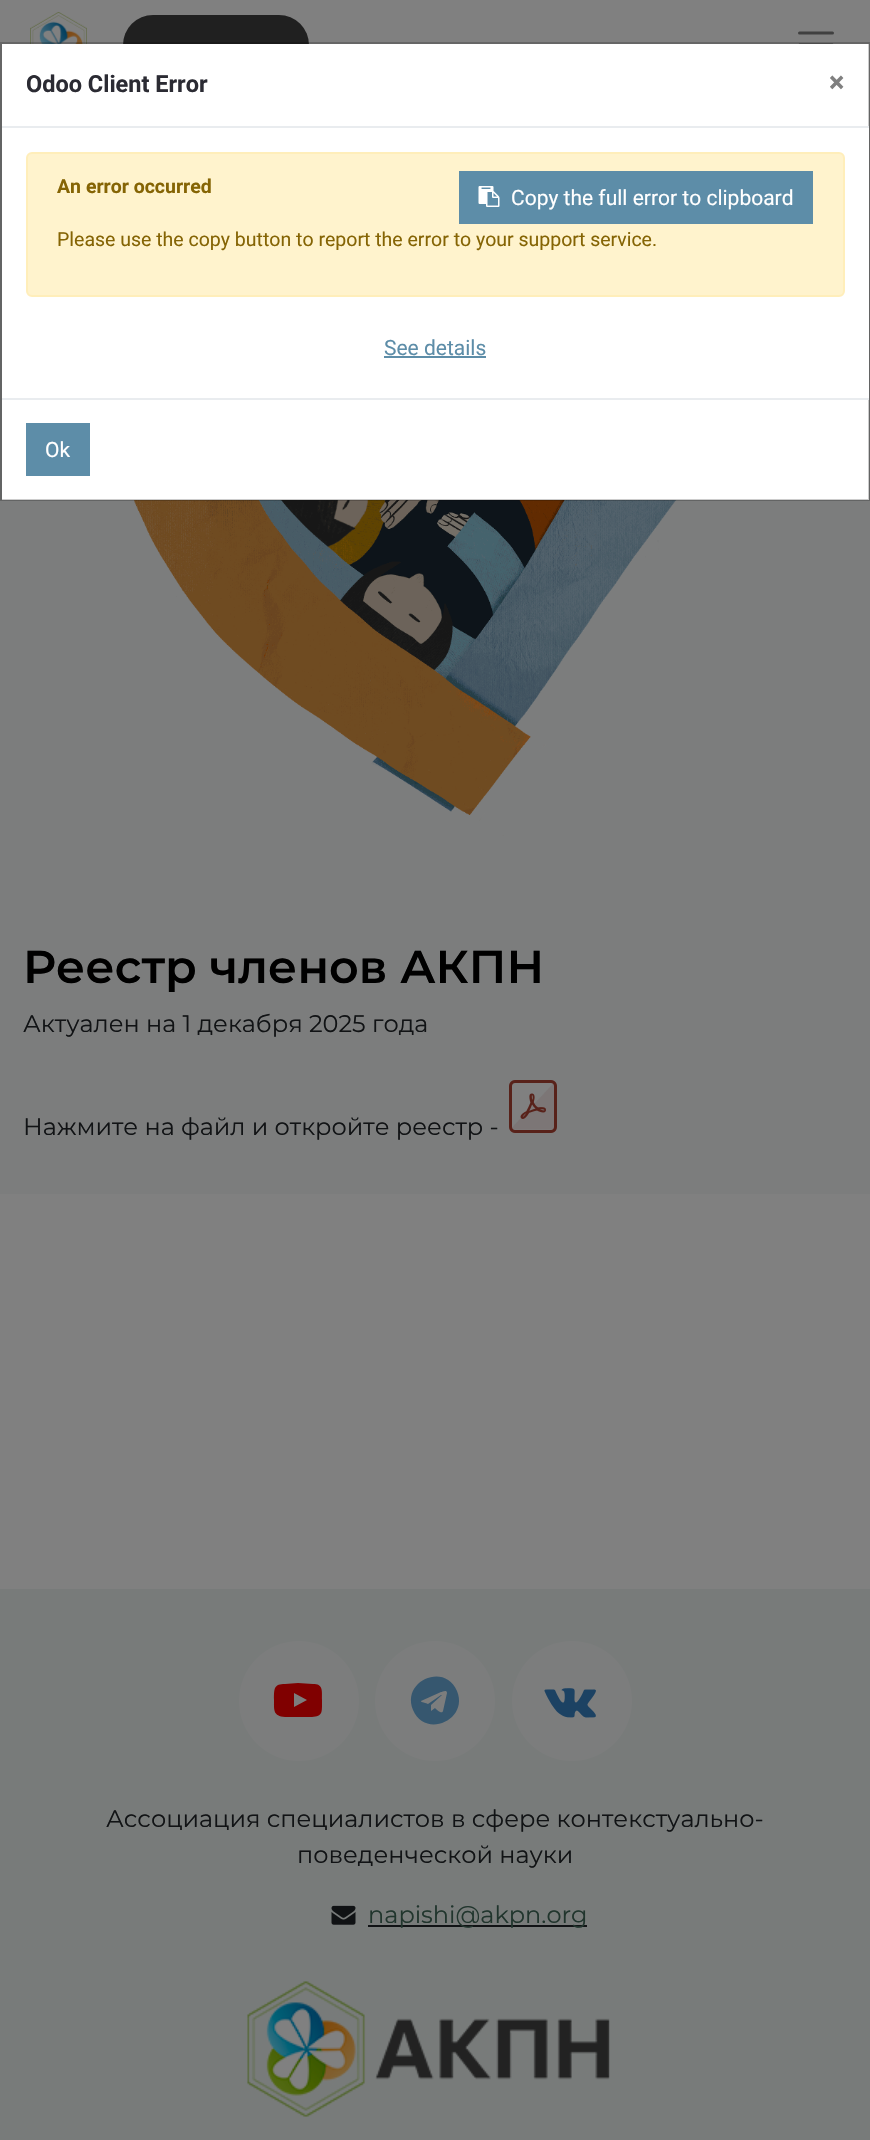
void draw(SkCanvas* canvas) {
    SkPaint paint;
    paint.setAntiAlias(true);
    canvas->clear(0xFF808080);
    paint.setColor(0xFF202020);
    canvas->drawRoundRect(SkRect::MakeXYWH(123, 15, 186, 60), 30, 30, paint);
    paint.setStyle(SkPaint::kStroke_Style);
    paint.setStrokeWidth(3);
    paint.setStrokeCap(SkPaint::kRound_Cap);
    paint.setColor(0xFF404040);
    canvas->drawPath(SkPathBuilder().moveTo(799.5f, 33).lineTo(832.5f, 33).moveTo(799.5f, 45).lineTo(832.5f, 45).moveTo(799.5f, 57).lineTo(832.5f, 57).detach(), paint);
    paint.setStyle(SkPaint::kFill_Style);
    paint.setColor(0xFF7C7D7D);
    canvas->drawRect(SkRect::MakeXYWH(0, 90, 870, 1104), paint);
    paint.setColor(0xFFFFFFFF);
    canvas->drawRect(SkRect::MakeXYWH(2, 44, 867, 456), paint);
    canvas->drawImageRect(SkImages::DeferredFromEncodedData(SkData::MakeFromFileName("img2.png")), SkRect::MakeXYWH(30, 12, 57, 32), SkSamplingOptions());
    canvas->drawImageRect(SkImages::DeferredFromEncodedData(SkData::MakeFromFileName("img3.png")), SkRect::MakeXYWH(134, 500, 543, 336), SkSamplingOptions());
    paint.setStyle(SkPaint::kStroke_Style);
    paint.setStrokeWidth(2);
    paint.setStrokeCap(SkPaint::kButt_Cap);
    paint.setColor(0x33000000);
    canvas->drawRect(SkRect::MakeXYWH(1, 43, 868, 457), paint);
    paint.setStyle(SkPaint::kFill_Style);
    paint.setColor(0xFFE9ECEF);
    canvas->drawRect(SkRect::MakeXYWH(2, 126, 867, 2), paint);
    SkFont font1(fontMgr->matchFamilyStyle("Roboto", SkFontStyle::Bold()), 23.5f);
    font1.setSubpixel(true);
    paint.setColor(0xFF2B2B33);
    canvas->drawString("Odoo Client Error", 26, 92, font1, paint);
    SkFont font2(fontMgr->matchFamilyStyle("Roboto", SkFontStyle::Bold()), 29);
    font2.setSubpixel(true);
    paint.setColor(0xFF808080);
    canvas->drawString("×", 829, 92, font2, paint);
    paint.setColor(0xFFFFFFFF);
    canvas->drawRect(SkRect::MakeXYWH(868, 128, 1, 270), paint);
    paint.setColor(0xFFFFF3CD);
    canvas->drawRoundRect(SkRect::MakeXYWH(27, 153, 817, 143), 5, 5, paint);
    paint.setStyle(SkPaint::kStroke_Style);
    paint.setColor(0xFFFFEEBA);
    canvas->drawRoundRect(SkRect::MakeXYWH(27, 153, 817, 143), 5, 5, paint);
    SkFont font3(fontMgr->matchFamilyStyle("Roboto", SkFontStyle::Bold()), 19.5f);
    font3.setSubpixel(true);
    paint.setStyle(SkPaint::kFill_Style);
    paint.setColor(0xFF856404);
    canvas->drawString("An error occurred", 57, 193, font3, paint);
    paint.setColor(0xFF5D8DA8);
    canvas->drawRect(SkRect::MakeXYWH(459, 171, 354, 53), paint);
    canvas->drawImageRect(SkImages::DeferredFromEncodedData(SkData::MakeFromFileName("img1.png")), SkRect::MakeXYWH(478, 186, 22, 21), SkSamplingOptions());
    SkFont font4(fontMgr->matchFamilyStyle("Roboto", SkFontStyle::Normal()), 21);
    font4.setSubpixel(true);
    paint.setColor(0xFFFFFFFF);
    canvas->drawString("Copy the full error to clipboard", 511, 205, font4, paint);
    SkFont font5(fontMgr->matchFamilyStyle("Roboto", SkFontStyle::Normal()), 19.5f);
    font5.setSubpixel(true);
    paint.setColor(0xFF856404);
    canvas->drawString("Please use the copy button to report the error to your support service.", 57, 246, font5, paint);
    paint.setColor(0xFF5D8DA8);
    canvas->drawString("See details", 384, 355, font4, paint);
    canvas->drawRect(SkRect::MakeXYWH(384, 356, 102, 2), paint);
    paint.setColor(0xFFE9ECEF);
    canvas->drawRect(SkRect::MakeXYWH(2, 398, 867, 2), paint);
    paint.setColor(0xFF5D8DA8);
    canvas->drawRect(SkRect::MakeXYWH(26, 423, 64, 53), paint);
    paint.setColor(0xFFFFFFFF);
    canvas->drawString("Ok", 45, 457, font4, paint);
    SkFont font6(fontMgr->matchFamilyStyle("Montserrat", SkFontStyle(600, SkFontStyle::kNormal_Width, SkFontStyle::kUpright_Slant)), 46);
    font6.setSubpixel(true);
    paint.setColor(0xFF000000);
    canvas->drawString("Реестр членов АКПН", 23, 983, font6, paint);
    SkFont font7(fontMgr->matchFamilyStyle("Montserrat", SkFontStyle::Normal()), 24);
    font7.setSubpixel(true);
    paint.setColor(0xFF111315);
    canvas->drawString("Актуален на 1 декабря 2025 года", 23, 1032, font7, paint);
    canvas->drawString("Нажмите на файл и откройте реестр -", 23, 1135, font7, paint);
    canvas->drawImageRect(SkImages::DeferredFromEncodedData(SkData::MakeFromFileName("img4.png")), SkRect::MakeXYWH(509, 1080, 48, 53), SkSamplingOptions());
    paint.setColor(0xFF787B7A);
    canvas->drawRect(SkRect::MakeXYWH(0, 1589, 870, 551), paint);
    paint.setColor(0xFF7C7D7D);
    canvas->drawCircle(299, 1701, 60, paint);
    paint.setColor(0xFF800000);
    canvas->drawPath(SkPathBuilder().moveTo(294, 1707).lineTo(307, 1700).lineTo(294, 1693).close().moveTo(298, 1683).lineTo(313, 1684).cubicTo(323, 1684, 322, 1690, 322, 1700).cubicTo(322, 1713, 323, 1716, 312, 1717).lineTo(285, 1717).cubicTo(273, 1716, 274, 1710, 274, 1700).cubicTo(274, 1688, 274, 1684, 285, 1684).close().detach(), paint);
    paint.setColor(0xFF7C7D7D);
    canvas->drawCircle(435, 1701, 60, paint);
    paint.setColor(0xFF36576F);
    canvas->drawPath(SkPathBuilder().moveTo(443, 1711).lineTo(447, 1693).cubicTo(447, 1689, 442, 1692, 441, 1692).lineTo(421, 1701).cubicTo(420, 1702, 427, 1703, 428, 1704).lineTo(441, 1695).cubicTo(442, 1695, 443, 1695, 442, 1695).lineTo(431, 1705).lineTo(431, 1711).lineTo(435, 1708).cubicTo(436, 1709, 442, 1715, 443, 1711).close().moveTo(457, 1691).cubicTo(469, 1720, 425, 1739, 413, 1710).cubicTo(401, 1681, 445, 1662, 457, 1691).close().detach(), paint);
    paint.setColor(0xFF7C7D7D);
    canvas->drawCircle(572, 1701, 60, paint);
    canvas->drawImageRect(SkImages::DeferredFromEncodedData(SkData::MakeFromFileName("img5.png")), SkRect::MakeXYWH(544, 1688, 52, 30), SkSamplingOptions());
    paint.setColor(0xFF111315);
    canvas->drawString("Ассоциация специалистов в сфере контекстуально-", 106, 1827, font7, paint);
    canvas->drawString("поведенческой науки", 297, 1863, font7, paint);
    canvas->drawImageRect(SkImages::DeferredFromEncodedData(SkData::MakeFromFileName("img6.png")), SkRect::MakeXYWH(331, 1905, 25, 20), SkSamplingOptions());
    canvas->drawRect(SkRect::MakeXYWH(368, 1925, 219, 2), paint);
    paint.setColor(0xFF21352D);
    canvas->drawString("napishi@akpn.org", 368, 1923, font7, paint);
    canvas->drawImageRect(SkImages::DeferredFromEncodedData(SkData::MakeFromFileName("img7.png")), SkRect::MakeXYWH(247, 1981, 363, 136), SkSamplingOptions());
}
